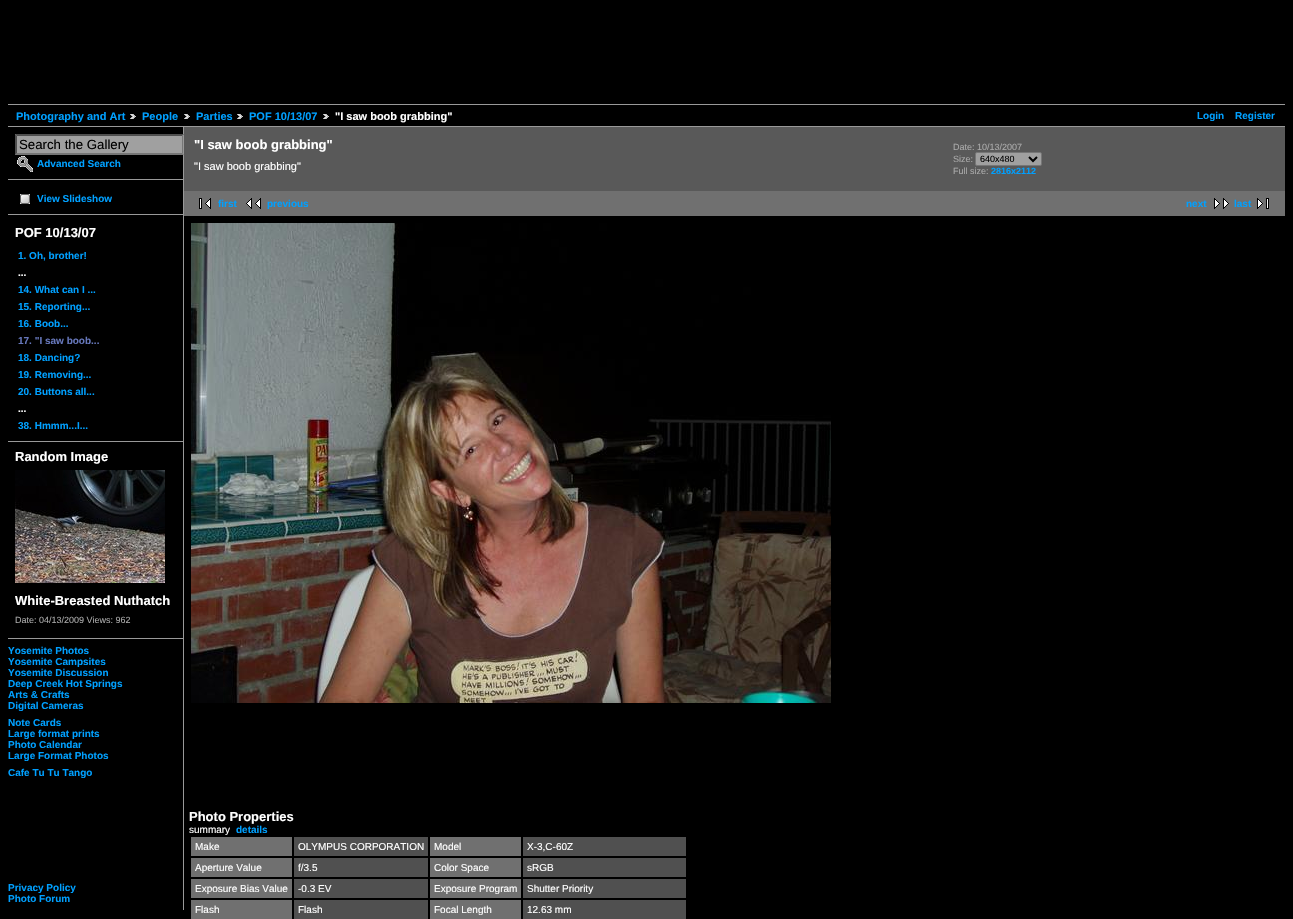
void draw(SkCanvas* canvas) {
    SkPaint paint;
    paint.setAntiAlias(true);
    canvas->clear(0xFF000000);
    paint.setColor(0xFF999999);
    canvas->drawRect(SkRect::MakeXYWH(8, 104, 1277, 1), paint);
    canvas->drawRect(SkRect::MakeXYWH(8, 126, 1277, 1), paint);
    SkFont font1(fontMgr->matchFamilyStyle("Liberation Sans", SkFontStyle::Bold()), 11);
    font1.setSubpixel(true);
    paint.setColor(0xFF00A0FF);
    canvas->drawString("Photography and Art", 16, 120, font1, paint);
    canvas->drawImageRect(SkImages::DeferredFromEncodedData(SkData::MakeFromFileName("img1.png")), SkRect::MakeXYWH(130, 114, 6, 5), SkSamplingOptions());
    canvas->drawString("People", 142, 120, font1, paint);
    canvas->drawImageRect(SkImages::DeferredFromEncodedData(SkData::MakeFromFileName("img1.png")), SkRect::MakeXYWH(184, 114, 6, 5), SkSamplingOptions());
    canvas->drawString("Parties", 196, 120, font1, paint);
    canvas->drawImageRect(SkImages::DeferredFromEncodedData(SkData::MakeFromFileName("img1.png")), SkRect::MakeXYWH(237, 114, 6, 5), SkSamplingOptions());
    canvas->drawString("POF 10/13/07", 249, 120, font1, paint);
    canvas->drawImageRect(SkImages::DeferredFromEncodedData(SkData::MakeFromFileName("img1.png")), SkRect::MakeXYWH(323, 114, 6, 5), SkSamplingOptions());
    paint.setColor(0xFFFFFFFF);
    canvas->drawString("\"I saw boob grabbing\"", 335, 120, font1, paint);
    SkFont font2(fontMgr->matchFamilyStyle("Liberation Sans", SkFontStyle::Bold()), 10);
    font2.setSubpixel(true);
    paint.setColor(0xFF00A0FF);
    canvas->drawString("Login", 1197, 119, font2, paint);
    canvas->drawString("Register", 1235, 119, font2, paint);
    paint.setColor(0xFF999999);
    canvas->drawRect(SkRect::MakeXYWH(183, 127, 1, 783), paint);
    canvas->drawRect(SkRect::MakeXYWH(8, 179, 175, 1), paint);
    paint.setColor(0xFFA0A0A0);
    canvas->drawRect(SkRect::MakeXYWH(15, 134, 168, 21), paint);
    paint.setColor(0xFF4F4F4F);
    canvas->drawPath(SkPathBuilder().moveTo(15, 134).lineTo(184, 134).lineTo(182, 136).lineTo(17, 136).close().detach(), paint);
    canvas->save();
    canvas->clipRect(SkRect::MakeXYWH(8, 127, 175, 783));
    paint.setColor(0xFF767676);
    canvas->drawPath(SkPathBuilder().moveTo(184, 134).lineTo(184, 155).lineTo(182, 153).lineTo(182, 136).close().detach(), paint);
    canvas->restore();
    canvas->drawPath(SkPathBuilder().moveTo(184, 155).lineTo(15, 155).lineTo(17, 153).lineTo(182, 153).close().detach(), paint);
    paint.setColor(0xFF4F4F4F);
    canvas->drawPath(SkPathBuilder().moveTo(15, 155).lineTo(15, 134).lineTo(17, 136).lineTo(17, 153).close().detach(), paint);
    SkFont font3(fontMgr->matchFamilyStyle("Liberation Sans", SkFontStyle::Normal()), 13.25f);
    font3.setSubpixel(true);
    paint.setColor(0xFF000000);
    canvas->drawString("Search the Gallery", 19, 149, font3, paint);
    canvas->drawImageRect(SkImages::DeferredFromEncodedData(SkData::MakeFromFileName("img2.png")), SkRect::MakeXYWH(17, 156, 16, 16), SkSamplingOptions());
    paint.setColor(0xFF00A0FF);
    canvas->drawString("Advanced Search", 37, 167, font2, paint);
    paint.setColor(0xFF999999);
    canvas->drawRect(SkRect::MakeXYWH(8, 214, 175, 1), paint);
    canvas->drawImageRect(SkImages::DeferredFromEncodedData(SkData::MakeFromFileName("img3.png")), SkRect::MakeXYWH(20, 194, 10, 10), SkSamplingOptions());
    paint.setColor(0xFF00A0FF);
    canvas->drawString("View Slideshow", 37, 202, font2, paint);
    paint.setColor(0xFF999999);
    canvas->drawRect(SkRect::MakeXYWH(8, 441, 175, 1), paint);
    SkFont font4(fontMgr->matchFamilyStyle("Liberation Sans", SkFontStyle::Bold()), 13);
    font4.setSubpixel(true);
    paint.setColor(0xFFFFFFFF);
    canvas->drawString("POF 10/13/07", 15, 237, font4, paint);
    paint.setColor(0xFF00A0FF);
    canvas->drawString("1. Oh, brother!", 18, 259, font2, paint);
    paint.setColor(0xFFFFFFFF);
    canvas->drawString("...", 18, 276, font2, paint);
    paint.setColor(0xFF00A0FF);
    canvas->drawString("14. What can I ...", 18, 293, font2, paint);
    canvas->drawString("15. Reporting...", 18, 310, font2, paint);
    canvas->drawString("16. Boob...", 18, 327, font2, paint);
    paint.setColor(0xFF6677BB);
    canvas->drawString("17. \"I saw boob...", 18, 344, font2, paint);
    paint.setColor(0xFF00A0FF);
    canvas->drawString("18. Dancing?", 18, 361, font2, paint);
    canvas->drawString("19. Removing...", 18, 378, font2, paint);
    canvas->drawString("20. Buttons all...", 18, 395, font2, paint);
    paint.setColor(0xFFFFFFFF);
    canvas->drawString("...", 18, 412, font2, paint);
    paint.setColor(0xFF00A0FF);
    canvas->drawString("38. Hmmm...I...", 18, 429, font2, paint);
    paint.setColor(0xFF999999);
    canvas->drawRect(SkRect::MakeXYWH(8, 638, 175, 1), paint);
    paint.setColor(0xFFFFFFFF);
    canvas->drawString("Random Image", 15, 461, font4, paint);
    canvas->drawImageRect(SkImages::DeferredFromEncodedData(SkData::MakeFromFileName("img4.png")), SkRect::MakeXYWH(15, 470, 150, 113), SkSamplingOptions());
    canvas->drawString("White-Breasted Nuthatch", 15, 605, font4, paint);
    SkFont font5(fontMgr->matchFamilyStyle("Liberation Sans", SkFontStyle::Normal()), 9);
    font5.setSubpixel(true);
    paint.setColor(0xFFAAAAAA);
    canvas->drawString("Date: 04/13/2009 Views: 962", 15, 623, font5, paint);
    paint.setColor(0xFF00A0FF);
    canvas->drawString("Yosemite Photos", 8, 654, font2, paint);
    canvas->drawString("Yosemite Campsites", 8, 665, font2, paint);
    canvas->drawString("Yosemite Discussion", 8, 676, font2, paint);
    canvas->drawString("Deep Creek Hot Springs", 8, 687, font2, paint);
    canvas->drawString("Arts & Crafts", 8, 698, font2, paint);
    canvas->drawString("Digital Cameras", 8, 709, font2, paint);
    canvas->drawString("Note Cards", 8, 726, font2, paint);
    canvas->drawString("Large format prints", 8, 737, font2, paint);
    canvas->drawString("Photo Calendar", 8, 748, font2, paint);
    canvas->drawString("Large Format Photos", 8, 759, font2, paint);
    canvas->drawString("Cafe Tu Tu Tango", 8, 776, font2, paint);
    canvas->drawString("Privacy Policy", 8, 891, font2, paint);
    canvas->drawString("Photo Forum", 8, 902, font2, paint);
    paint.setColor(0xFF595959);
    canvas->drawRect(SkRect::MakeXYWH(184, 127, 1101, 64), paint);
    paint.setColor(0xFFFFFFFF);
    canvas->drawString("\"I saw boob grabbing\"", 194, 149, font4, paint);
    SkFont font6(fontMgr->matchFamilyStyle("Liberation Sans", SkFontStyle::Normal()), 11);
    font6.setSubpixel(true);
    canvas->drawString("\"I saw boob grabbing\"", 194, 170, font6, paint);
    paint.setColor(0xFFAAAAAA);
    canvas->drawString("Date: 10/13/2007", 953, 150, font5, paint);
    canvas->drawString("Size:", 953, 162, font5, paint);
    paint.setColor(0xFFA0A0A0);
    canvas->drawRoundRect(SkRect::MakeXYWH(975.5f, 152.5f, 66, 13), 1.5f, 1.5f, paint);
    paint.setStyle(SkPaint::kStroke_Style);
    paint.setStrokeWidth(1);
    paint.setColor(0xFF767676);
    canvas->drawRoundRect(SkRect::MakeXYWH(975.5f, 152.5f, 66, 13), 1.5f, 1.5f, paint);
    paint.setStrokeWidth(2);
    paint.setColor(0xFF000000);
    canvas->drawPath(SkPathBuilder().moveTo(1029, 157).lineTo(1033, 161).lineTo(1037, 157).detach(), paint);
    paint.setStyle(SkPaint::kFill_Style);
    canvas->drawString("640x480", 980, 162, font5, paint);
    paint.setColor(0xFFAAAAAA);
    canvas->drawString("Full size:", 953, 174, font5, paint);
    SkFont font7(fontMgr->matchFamilyStyle("Liberation Sans", SkFontStyle::Bold()), 9);
    font7.setSubpixel(true);
    paint.setColor(0xFF00A0FF);
    canvas->drawString("2816x2112", 991, 174, font7, paint);
    paint.setColor(0xFF707070);
    canvas->drawRect(SkRect::MakeXYWH(184, 191, 1101, 25), paint);
    canvas->drawImageRect(SkImages::DeferredFromEncodedData(SkData::MakeFromFileName("img5.png")), SkRect::MakeXYWH(199, 198, 12, 11), SkSamplingOptions());
    paint.setColor(0xFF00A0FF);
    canvas->drawString("first", 218, 207, font2, paint);
    canvas->drawImageRect(SkImages::DeferredFromEncodedData(SkData::MakeFromFileName("img6.png")), SkRect::MakeXYWH(246, 198, 15, 11), SkSamplingOptions());
    canvas->drawString("previous", 267, 207, font2, paint);
    canvas->drawString("next", 1186, 207, font2, paint);
    canvas->drawImageRect(SkImages::DeferredFromEncodedData(SkData::MakeFromFileName("img7.png")), SkRect::MakeXYWH(1214, 198, 15, 11), SkSamplingOptions());
    canvas->drawString("last", 1234, 207, font2, paint);
    canvas->drawImageRect(SkImages::DeferredFromEncodedData(SkData::MakeFromFileName("img8.png")), SkRect::MakeXYWH(1257, 198, 12, 11), SkSamplingOptions());
    canvas->drawImageRect(SkImages::DeferredFromEncodedData(SkData::MakeFromFileName("img9.png")), SkRect::MakeXYWH(191, 223, 640, 480), SkSamplingOptions());
    paint.setColor(0xFFFFFFFF);
    canvas->drawString("Photo Properties", 189, 821, font4, paint);
    SkFont font8(fontMgr->matchFamilyStyle("Liberation Sans", SkFontStyle::Normal()), 10);
    font8.setSubpixel(true);
    canvas->drawString("summary", 189, 833, font8, paint);
    paint.setColor(0xFF00A0FF);
    canvas->drawString("details", 236, 833, font2, paint);
    paint.setColor(0xFF707070);
    canvas->drawRect(SkRect::MakeXYWH(191, 837, 101, 19), paint);
    paint.setColor(0xFFFFFFFF);
    canvas->drawString("Make", 195, 850, font8, paint);
    paint.setColor(0xFF505050);
    canvas->drawRect(SkRect::MakeXYWH(294, 837, 134, 19), paint);
    paint.setColor(0xFFFFFFFF);
    canvas->drawString("OLYMPUS CORPORATION", 298, 850, font8, paint);
    paint.setColor(0xFF707070);
    canvas->drawRect(SkRect::MakeXYWH(430, 837, 91, 19), paint);
    paint.setColor(0xFFFFFFFF);
    canvas->drawString("Model", 434, 850, font8, paint);
    paint.setColor(0xFF505050);
    canvas->drawRect(SkRect::MakeXYWH(523, 837, 163, 19), paint);
    paint.setColor(0xFFFFFFFF);
    canvas->drawString("X-3,C-60Z", 527, 850, font8, paint);
    paint.setColor(0xFF707070);
    canvas->drawRect(SkRect::MakeXYWH(191, 858, 101, 19), paint);
    paint.setColor(0xFFFFFFFF);
    canvas->drawString("Aperture Value", 195, 871, font8, paint);
    paint.setColor(0xFF505050);
    canvas->drawRect(SkRect::MakeXYWH(294, 858, 134, 19), paint);
    paint.setColor(0xFFFFFFFF);
    canvas->drawString("f/3.5", 298, 871, font8, paint);
    paint.setColor(0xFF707070);
    canvas->drawRect(SkRect::MakeXYWH(430, 858, 91, 19), paint);
    paint.setColor(0xFFFFFFFF);
    canvas->drawString("Color Space", 434, 871, font8, paint);
    paint.setColor(0xFF505050);
    canvas->drawRect(SkRect::MakeXYWH(523, 858, 163, 19), paint);
    paint.setColor(0xFFFFFFFF);
    canvas->drawString("sRGB", 527, 871, font8, paint);
    paint.setColor(0xFF707070);
    canvas->drawRect(SkRect::MakeXYWH(191, 879, 101, 19), paint);
    paint.setColor(0xFFFFFFFF);
    canvas->drawString("Exposure Bias Value", 195, 892, font8, paint);
    paint.setColor(0xFF505050);
    canvas->drawRect(SkRect::MakeXYWH(294, 879, 134, 19), paint);
    paint.setColor(0xFFFFFFFF);
    canvas->drawString("-0.3 EV", 298, 892, font8, paint);
    paint.setColor(0xFF707070);
    canvas->drawRect(SkRect::MakeXYWH(430, 879, 91, 19), paint);
    paint.setColor(0xFFFFFFFF);
    canvas->drawString("Exposure Program", 434, 892, font8, paint);
    paint.setColor(0xFF505050);
    canvas->drawRect(SkRect::MakeXYWH(523, 879, 163, 19), paint);
    paint.setColor(0xFFFFFFFF);
    canvas->drawString("Shutter Priority", 527, 892, font8, paint);
    paint.setColor(0xFF707070);
    canvas->drawRect(SkRect::MakeXYWH(191, 900, 101, 19), paint);
    paint.setColor(0xFFFFFFFF);
    canvas->drawString("Flash", 195, 913, font8, paint);
    paint.setColor(0xFF505050);
    canvas->drawRect(SkRect::MakeXYWH(294, 900, 134, 19), paint);
    paint.setColor(0xFFFFFFFF);
    canvas->drawString("Flash", 298, 913, font8, paint);
    paint.setColor(0xFF707070);
    canvas->drawRect(SkRect::MakeXYWH(430, 900, 91, 19), paint);
    paint.setColor(0xFFFFFFFF);
    canvas->drawString("Focal Length", 434, 913, font8, paint);
    paint.setColor(0xFF505050);
    canvas->drawRect(SkRect::MakeXYWH(523, 900, 163, 19), paint);
    paint.setColor(0xFFFFFFFF);
    canvas->drawString("12.63 mm", 527, 913, font8, paint);
}
